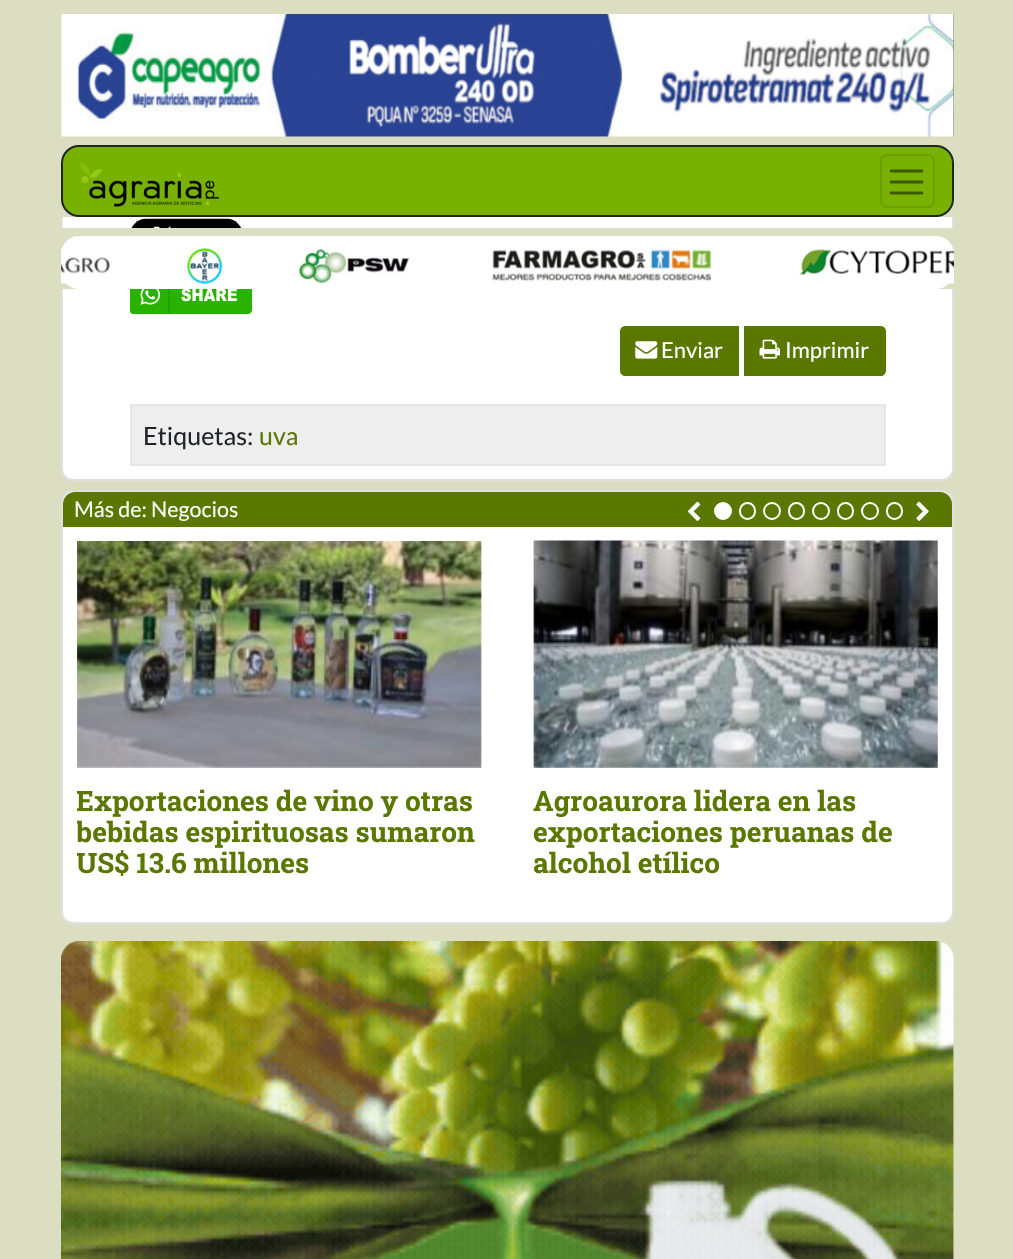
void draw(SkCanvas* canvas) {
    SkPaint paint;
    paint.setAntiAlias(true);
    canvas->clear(0xFFDBDEC0);
    paint.setColor(0xFFFFFFFF);
    canvas->drawRoundRect(SkRect::MakeXYWH(61, -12, 893, 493), 12, 12, paint);
    paint.setStyle(SkPaint::kStroke_Style);
    paint.setStrokeWidth(2);
    paint.setColor(0x1F000000);
    canvas->drawRoundRect(SkRect::MakeXYWH(62, -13, 891, 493), 11, 11, paint);
    paint.setStyle(SkPaint::kFill_Style);
    paint.setColor(0xFFDBDEC0);
    canvas->drawRect(SkRect::MakeXYWH(61, 0, 893, 217), paint);
    canvas->drawImageRect(SkImages::DeferredFromEncodedData(SkData::MakeFromFileName("img1.png")), SkRect::MakeXYWH(61, 14, 893, 123), SkSamplingOptions());
    canvas->drawImageRect(SkImages::DeferredFromEncodedData(SkData::MakeFromFileName("img2.png")), SkRect::MakeXYWH(953, 14, 1, 123), SkSamplingOptions());
    paint.setColor(0xFF78B100);
    canvas->drawRoundRect(SkRect::MakeXYWH(62, 146, 891, 70), 17, 17, paint);
    paint.setStyle(SkPaint::kStroke_Style);
    paint.setColor(0xFF212529);
    canvas->drawRoundRect(SkRect::MakeXYWH(62, 146, 891, 70), 17, 17, paint);
    canvas->drawImageRect(SkImages::DeferredFromEncodedData(SkData::MakeFromFileName("img3.png")), SkRect::MakeXYWH(80, 163, 139, 44), SkSamplingOptions());
    paint.setColor(0xFF6C9F00);
    canvas->drawRoundRect(SkRect::MakeXYWH(881, 155, 53, 52), 6, 6, paint);
    paint.setStrokeWidth(2.8f);
    paint.setStrokeCap(SkPaint::kRound_Cap);
    paint.setColor(0xFF3C5900);
    canvas->drawPath(SkPathBuilder().moveTo(891, 171).lineTo(922, 171).moveTo(891, 182).lineTo(922, 182).moveTo(891, 193).lineTo(922, 193).detach(), paint);
    paint.setStyle(SkPaint::kFill_Style);
    paint.setColor(0xFFDBDEC0);
    canvas->drawRect(SkRect::MakeXYWH(61, 228, 893, 61), paint);
    paint.setColor(0xFFFFFFFF);
    canvas->drawRoundRect(SkRect::MakeXYWH(61, 236, 893, 53), 18, 18, paint);
    canvas->drawImageRect(SkImages::DeferredFromEncodedData(SkData::MakeFromFileName("img4.png")), SkRect::MakeXYWH(61, 249, 49, 35), SkSamplingOptions());
    canvas->drawImageRect(SkImages::DeferredFromEncodedData(SkData::MakeFromFileName("img5.png")), SkRect::MakeXYWH(187, 248, 36, 36), SkSamplingOptions());
    canvas->drawImageRect(SkImages::DeferredFromEncodedData(SkData::MakeFromFileName("img6.png")), SkRect::MakeXYWH(298, 249, 112, 35), SkSamplingOptions());
    canvas->drawImageRect(SkImages::DeferredFromEncodedData(SkData::MakeFromFileName("img7.png")), SkRect::MakeXYWH(492, 249, 220, 32), SkSamplingOptions());
    canvas->drawImageRect(SkImages::DeferredFromEncodedData(SkData::MakeFromFileName("img8.png")), SkRect::MakeXYWH(799, 249, 155, 35), SkSamplingOptions());
    canvas->drawImageRect(SkImages::DeferredFromEncodedData(SkData::MakeFromFileName("img9.png")), SkRect::MakeXYWH(131, 218, 111, 10), SkSamplingOptions());
    canvas->drawImageRect(SkImages::DeferredFromEncodedData(SkData::MakeFromFileName("img10.png")), SkRect::MakeXYWH(130, 289, 122, 26), SkSamplingOptions());
    paint.setColor(0xFF5A7700);
    canvas->drawPath(SkPathBuilder().moveTo(625, 327).lineTo(738, 327).lineTo(738, 375).lineTo(625, 375).cubicTo(623, 375, 621, 373, 621, 371).lineTo(621, 331).cubicTo(621, 329, 623, 327, 625, 327).close().detach(), paint);
    paint.setStyle(SkPaint::kStroke_Style);
    paint.setStrokeWidth(2);
    paint.setStrokeCap(SkPaint::kButt_Cap);
    canvas->drawPath(SkPathBuilder().moveTo(625, 327).lineTo(738, 327).lineTo(738, 375).lineTo(625, 375).cubicTo(623, 375, 621, 373, 621, 371).lineTo(621, 331).cubicTo(621, 329, 623, 327, 625, 327).close().detach(), paint);
    canvas->drawImageRect(SkImages::DeferredFromEncodedData(SkData::MakeFromFileName("img11.png")), SkRect::MakeXYWH(635, 341, 23, 18), SkSamplingOptions());
    SkFont font1(fontMgr->matchFamilyStyle("Lato", SkFontStyle::Normal()), 22);
    font1.setSubpixel(true);
    paint.setStyle(SkPaint::kFill_Style);
    paint.setColor(0xFFFFFFFF);
    canvas->drawString("Enviar", 661, 358, font1, paint);
    paint.setColor(0xFF5A7700);
    canvas->drawPath(SkPathBuilder().moveTo(745, 327).lineTo(881, 327).cubicTo(883, 327, 885, 329, 885, 331).lineTo(885, 371).cubicTo(885, 373, 883, 375, 881, 375).lineTo(745, 375).close().detach(), paint);
    paint.setStyle(SkPaint::kStroke_Style);
    canvas->drawPath(SkPathBuilder().moveTo(745, 327).lineTo(881, 327).cubicTo(883, 327, 885, 329, 885, 331).lineTo(885, 371).cubicTo(885, 373, 883, 375, 881, 375).lineTo(745, 375).close().detach(), paint);
    canvas->drawImageRect(SkImages::DeferredFromEncodedData(SkData::MakeFromFileName("img12.png")), SkRect::MakeXYWH(759, 339, 21, 20), SkSamplingOptions());
    paint.setStyle(SkPaint::kFill_Style);
    paint.setColor(0xFFFFFFFF);
    canvas->drawString("Imprimir", 785, 358, font1, paint);
    paint.setColor(0xFFEEEEEE);
    canvas->drawRect(SkRect::MakeXYWH(131, 405, 754, 60), paint);
    paint.setStyle(SkPaint::kStroke_Style);
    paint.setColor(0xFFE6E6E6);
    canvas->drawRect(SkRect::MakeXYWH(131, 405, 754, 60), paint);
    SkFont font2(fontMgr->matchFamilyStyle("Lato", SkFontStyle::Normal()), 25);
    font2.setSubpixel(true);
    paint.setStyle(SkPaint::kFill_Style);
    paint.setColor(0xFF212529);
    canvas->drawString("Etiquetas:", 143, 445, font2, paint);
    paint.setColor(0xFF5A7700);
    canvas->drawString("uva", 259, 445, font2, paint);
    paint.setColor(0xFFFFFFFF);
    canvas->drawRoundRect(SkRect::MakeXYWH(61, 490, 893, 434), 12, 12, paint);
    paint.setStyle(SkPaint::kStroke_Style);
    paint.setColor(0x1F000000);
    canvas->drawRoundRect(SkRect::MakeXYWH(62, 491, 891, 432), 11, 11, paint);
    paint.setStyle(SkPaint::kFill_Style);
    paint.setColor(0xFF5A7700);
    canvas->drawPath(SkPathBuilder().moveTo(75, 492).lineTo(940, 492).cubicTo(946.5f, 492, 952, 497.5f, 952, 504).lineTo(952, 527).lineTo(63, 527).lineTo(63, 504).cubicTo(63, 497.5f, 68.5f, 492, 75, 492).close().detach(), paint);
    SkFont font3(fontMgr->matchFamilyStyle("Lato", SkFontStyle::Normal()), 21.5f);
    font3.setSubpixel(true);
    paint.setColor(0xFFFFFFFF);
    canvas->drawString("Más de: Negocios", 74, 517, font3, paint);
    canvas->drawImageRect(SkImages::DeferredFromEncodedData(SkData::MakeFromFileName("img13.png")), SkRect::MakeXYWH(687, 501, 14, 20), SkSamplingOptions());
    canvas->drawCircle(723, 511, 8, paint);
    paint.setStyle(SkPaint::kStroke_Style);
    canvas->drawCircle(723, 511, 8, paint);
    canvas->drawRoundRect(SkRect::MakeXYWH(740, 503, 15, 16), 7.5f, 7.5f, paint);
    canvas->drawCircle(772, 511, 8, paint);
    canvas->drawRoundRect(SkRect::MakeXYWH(789, 503, 15, 16), 7.5f, 7.5f, paint);
    canvas->drawCircle(821, 511, 8, paint);
    canvas->drawRoundRect(SkRect::MakeXYWH(838, 503, 15, 16), 7.5f, 7.5f, paint);
    canvas->drawCircle(870, 511, 8, paint);
    canvas->drawRoundRect(SkRect::MakeXYWH(887, 503, 15, 16), 7.5f, 7.5f, paint);
    canvas->drawImageRect(SkImages::DeferredFromEncodedData(SkData::MakeFromFileName("img14.png")), SkRect::MakeXYWH(916, 501, 13, 20), SkSamplingOptions());
    canvas->drawImageRect(SkImages::DeferredFromEncodedData(SkData::MakeFromFileName("img15.png")), SkRect::MakeXYWH(77, 541, 405, 227), SkSamplingOptions());
    canvas->save();
    canvas->clipRect(SkRect::MakeXYWH(77, 541, 861, 367));
    SkFont font4(fontMgr->matchFamilyStyle("Roboto Slab", SkFontStyle::Bold()), 28);
    font4.setSubpixel(true);
    paint.setStyle(SkPaint::kFill_Style);
    paint.setColor(0xFF5A7700);
    canvas->drawString("Exportaciones de vino y otras", 76, 811, font4, paint);
    canvas->drawString("bebidas espirituosas sumaron", 76, 842, font4, paint);
    canvas->drawString("US$ 13.6 millones", 76, 873, font4, paint);
    canvas->restore();
    canvas->drawImageRect(SkImages::DeferredFromEncodedData(SkData::MakeFromFileName("img16.png")), SkRect::MakeXYWH(533, 540, 405, 228), SkSamplingOptions());
    canvas->drawString("Agroaurora lidera en las", 533, 811, font4, paint);
    canvas->drawString("exportaciones peruanas de", 533, 842, font4, paint);
    canvas->drawString("alcohol etílico", 533, 873, font4, paint);
    canvas->drawImageRect(SkImages::DeferredFromEncodedData(SkData::MakeFromFileName("img17.png")), SkRect::MakeXYWH(61, 941, 893, 318), SkSamplingOptions());
}
